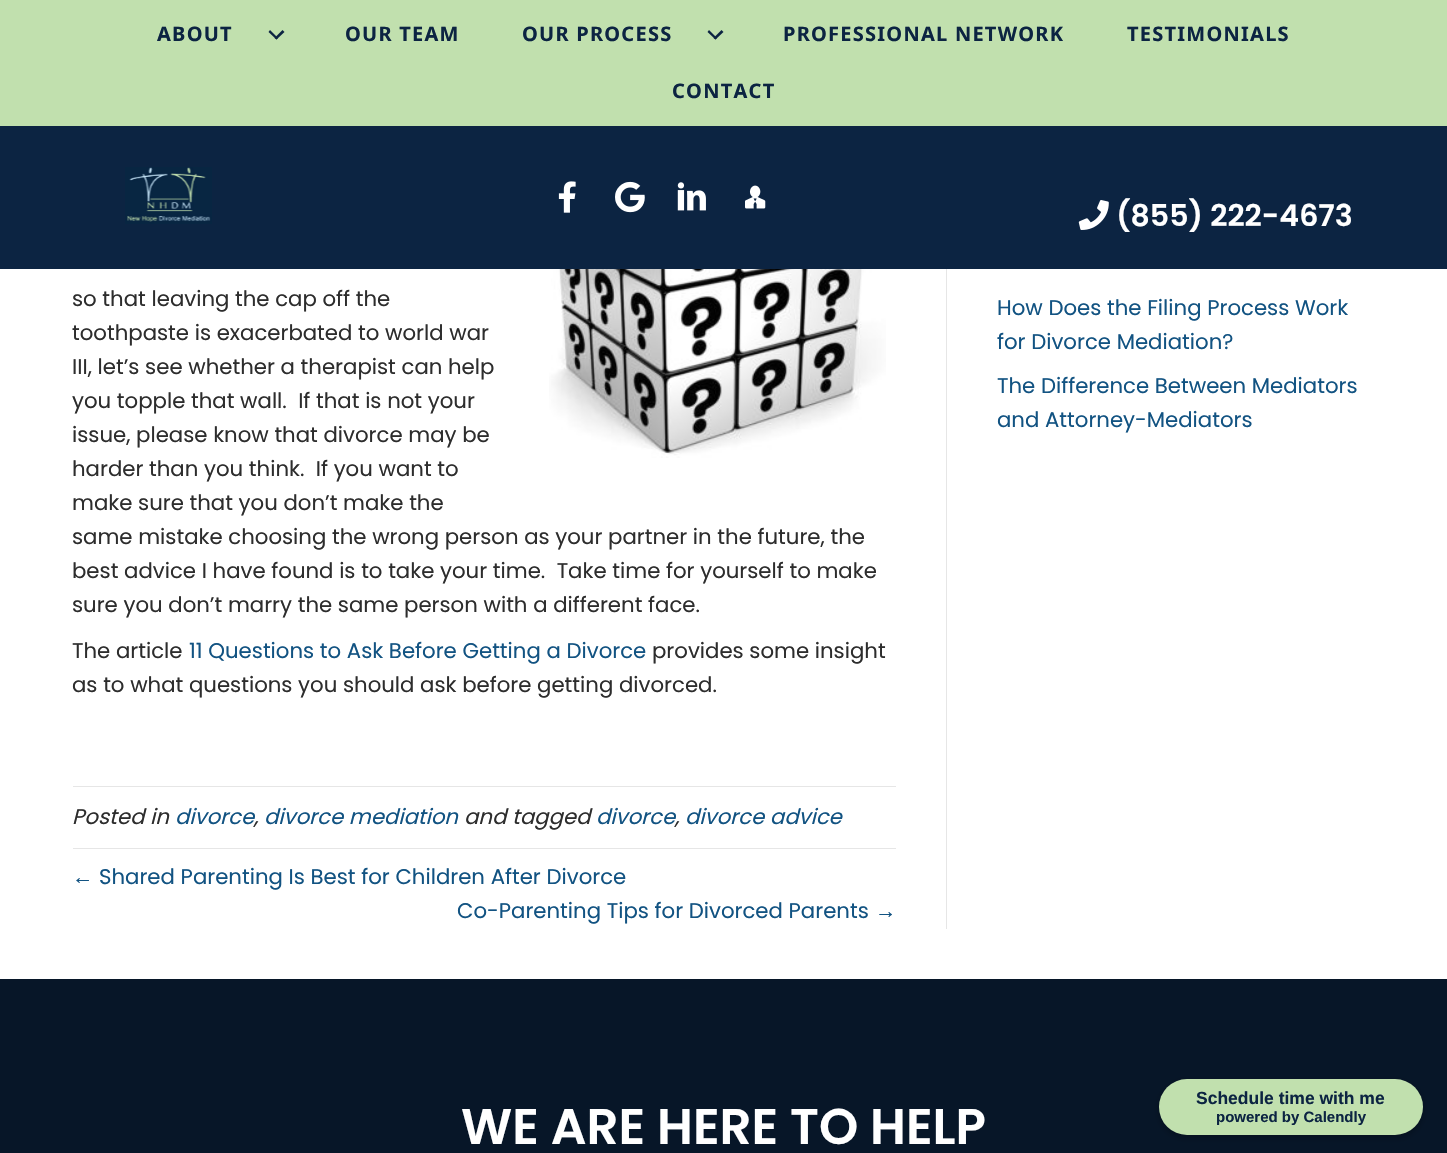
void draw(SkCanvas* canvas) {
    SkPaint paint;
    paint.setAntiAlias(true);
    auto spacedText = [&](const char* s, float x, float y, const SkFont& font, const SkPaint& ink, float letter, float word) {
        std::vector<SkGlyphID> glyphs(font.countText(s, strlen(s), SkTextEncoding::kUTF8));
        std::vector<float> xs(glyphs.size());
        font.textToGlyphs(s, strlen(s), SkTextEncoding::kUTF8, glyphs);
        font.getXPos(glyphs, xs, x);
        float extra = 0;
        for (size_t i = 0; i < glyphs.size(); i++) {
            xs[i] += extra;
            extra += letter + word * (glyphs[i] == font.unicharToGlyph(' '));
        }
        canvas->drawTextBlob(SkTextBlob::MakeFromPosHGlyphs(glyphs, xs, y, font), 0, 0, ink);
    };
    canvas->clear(0xFFFFFFFF);
    paint.setColor(0xFFC1E0AE);
    canvas->drawRect(SkRect::MakeXYWH(0, 0, 1447, 126), paint);
    SkFont font1(fontMgr->matchFamilyStyle("Noto Sans", SkFontStyle::Bold()), 20);
    font1.setSubpixel(true);
    paint.setColor(0xFF0C2442);
    spacedText("ABOUT", 157, 41, font1, paint, 1.25f, 0);
    canvas->drawPath(SkPathBuilder().moveTo(282.5f, 30).lineTo(284.5f, 32).lineTo(276.5f, 39.5f).lineTo(274.5f, 38).close().detach(), paint);
    canvas->drawPath(SkPathBuilder().moveTo(270, 30).lineTo(278, 38).lineTo(276.5f, 39.5f).lineTo(268.5f, 32).close().detach(), paint);
    spacedText("OUR TEAM", 345, 41, font1, paint, 1.25f, 0);
    spacedText("OUR PROCESS", 522, 41, font1, paint, 1.25f, 0);
    canvas->drawPath(SkPathBuilder().moveTo(721.5f, 30).lineTo(723.5f, 32).lineTo(715.5f, 39.5f).lineTo(713.5f, 38).close().detach(), paint);
    canvas->drawPath(SkPathBuilder().moveTo(709, 30).lineTo(717, 38).lineTo(715.5f, 39.5f).lineTo(707.5f, 32).close().detach(), paint);
    spacedText("PROFESSIONAL NETWORK", 783, 41, font1, paint, 1.25f, 0);
    spacedText("TESTIMONIALS", 1127, 41, font1, paint, 1.25f, 0);
    spacedText("CONTACT", 672, 98, font1, paint, 1.25f, 0);
    canvas->drawRect(SkRect::MakeXYWH(0, 126, 1447, 143), paint);
    canvas->drawImageRect(SkImages::DeferredFromEncodedData(SkData::MakeFromFileName("img1.png")), SkRect::MakeXYWH(125, 167, 87, 57), SkSamplingOptions());
    canvas->drawImageRect(SkImages::DeferredFromEncodedData(SkData::MakeFromFileName("img2.png")), SkRect::MakeXYWH(558, 181, 18, 32), SkSamplingOptions());
    canvas->drawImageRect(SkImages::DeferredFromEncodedData(SkData::MakeFromFileName("img3.png")), SkRect::MakeXYWH(615, 181, 30, 32), SkSamplingOptions());
    canvas->drawImageRect(SkImages::DeferredFromEncodedData(SkData::MakeFromFileName("img4.png")), SkRect::MakeXYWH(677, 182, 29, 29), SkSamplingOptions());
    canvas->drawImageRect(SkImages::DeferredFromEncodedData(SkData::MakeFromFileName("img5.png")), SkRect::MakeXYWH(745, 185, 21, 24), SkSamplingOptions());
    canvas->drawImageRect(SkImages::DeferredFromEncodedData(SkData::MakeFromFileName("img6.png")), SkRect::MakeXYWH(1078, 200, 31, 30), SkSamplingOptions());
    SkFont font2(fontMgr->matchFamilyStyle("Poppins", SkFontStyle(600, SkFontStyle::kNormal_Width, SkFontStyle::kUpright_Slant)), 30);
    font2.setSubpixel(true);
    paint.setColor(0xFFFFFFFF);
    canvas->drawString("(855) 222-4673", 1116, 226, font2, paint);
    paint.setColor(0xFFE6E6E6);
    canvas->drawRect(SkRect::MakeXYWH(946, 269, 1, 660), paint);
    SkFont font3(fontMgr->matchFamilyStyle("Poppins", SkFontStyle::Normal()), 21.25f);
    font3.setSubpixel(true);
    paint.setColor(0xFF2D2D2D);
    canvas->drawString("so that leaving the cap off the", 72, 306, font3, paint);
    canvas->drawImageRect(SkImages::DeferredFromEncodedData(SkData::MakeFromFileName("img7.png")), SkRect::MakeXYWH(549, 269, 337, 189), SkSamplingOptions());
    canvas->drawString("toothpaste is exacerbated to world war", 72, 340, font3, paint);
    canvas->drawString("III, let’s see whether a therapist can help", 72, 374, font3, paint);
    canvas->drawString("you topple that wall.  If that is not your", 72, 408, font3, paint);
    canvas->drawString("issue, please know that divorce may be", 72, 442, font3, paint);
    canvas->drawString("harder than you think.  If you want to", 72, 476, font3, paint);
    canvas->drawString("make sure that you don’t make the", 72, 510, font3, paint);
    canvas->drawString("same mistake choosing the wrong person as your partner in the future, the", 72, 544, font3, paint);
    canvas->drawString("best advice I have found is to take your time.  Take time for yourself to make", 72, 578, font3, paint);
    canvas->drawString("sure you don’t marry the same person with a different face.", 72, 612, font3, paint);
    canvas->drawString("The article", 72, 658, font3, paint);
    paint.setColor(0xFF125382);
    canvas->drawString("11 Questions to Ask Before Getting a Divorce", 189, 658, font3, paint);
    paint.setColor(0xFF2D2D2D);
    canvas->drawString("provides some insight", 652, 658, font3, paint);
    canvas->drawString("as to what questions you should ask before getting divorced.", 72, 692, font3, paint);
    paint.setColor(0xFFE6E6E6);
    canvas->drawRect(SkRect::MakeXYWH(73, 786, 823, 1), paint);
    SkFont font4(fontMgr->matchFamilyStyle("Poppins", SkFontStyle::Italic()), 21.25f);
    font4.setSubpixel(true);
    paint.setColor(0xFF2D2D2D);
    canvas->drawString("Posted in", 72, 824, font4, paint);
    paint.setColor(0xFF125382);
    canvas->drawString("divorce", 175, 824, font4, paint);
    paint.setColor(0xFF2D2D2D);
    canvas->drawString(",", 254, 824, font4, paint);
    paint.setColor(0xFF125382);
    canvas->drawString("divorce mediation", 264, 824, font4, paint);
    paint.setColor(0xFF2D2D2D);
    canvas->drawString("and tagged", 464, 824, font4, paint);
    paint.setColor(0xFF125382);
    canvas->drawString("divorce", 596, 824, font4, paint);
    canvas->drawString("divorce advice", 685, 824, font4, paint);
    paint.setColor(0xFF2D2D2D);
    canvas->drawString(",", 675, 824, font4, paint);
    paint.setColor(0xFFE6E6E6);
    canvas->drawRect(SkRect::MakeXYWH(73, 848, 823, 1), paint);
    SkFont font5(fontMgr->matchFamilyStyle("Liberation Sans", SkFontStyle::Normal()), 21.25f);
    font5.setSubpixel(true);
    paint.setColor(0xFF125382);
    canvas->drawString("←", 72, 884, font5, paint);
    canvas->drawString("Shared Parenting Is Best for Children After Divorce", 99, 884, font3, paint);
    canvas->drawString("Co-Parenting Tips for Divorced Parents", 457, 918, font3, paint);
    canvas->drawString("→", 875, 918, font5, paint);
    canvas->drawString("How Does the Filing Process Work", 997, 315, font3, paint);
    canvas->drawString("for Divorce Mediation?", 997, 349, font3, paint);
    canvas->drawString("The Difference Between Mediators", 997, 393, font3, paint);
    canvas->drawString("and Attorney-Mediators", 997, 427, font3, paint);
    paint.setColor(0xFF071628);
    canvas->drawRect(SkRect::MakeXYWH(0, 979, 1447, 174), paint);
    SkFont font6(fontMgr->matchFamilyStyle("Poppins", SkFontStyle(600, SkFontStyle::kNormal_Width, SkFontStyle::kUpright_Slant)), 50);
    font6.setSubpixel(true);
    paint.setColor(0xFFFFFFFF);
    canvas->drawString("WE ARE HERE TO HELP", 461, 1144, font6, paint);
    paint.setColor(0x40000000);
    paint.setMaskFilter(SkMaskFilter::MakeBlur(kNormal_SkBlurStyle, 3));
    canvas->drawRoundRect(SkRect::MakeXYWH(1159, 1081, 264, 57), 28.5f, 28.5f, paint);
    paint.setMaskFilter(nullptr);
    paint.setColor(0xFFC1E0AE);
    canvas->drawRoundRect(SkRect::MakeXYWH(1159, 1079, 264, 56), 28, 28, paint);
    SkFont font7(fontMgr->matchFamilyStyle("Liberation Sans", SkFontStyle::Bold()), 17.5f);
    font7.setSubpixel(true);
    paint.setColor(0xFF0C2442);
    canvas->drawString("Schedule time with me", 1196, 1104, font7, paint);
    SkFont font8(fontMgr->matchFamilyStyle("Liberation Sans", SkFontStyle::Bold()), 15);
    font8.setSubpixel(true);
    canvas->drawString("powered by Calendly", 1216, 1122, font8, paint);
}
